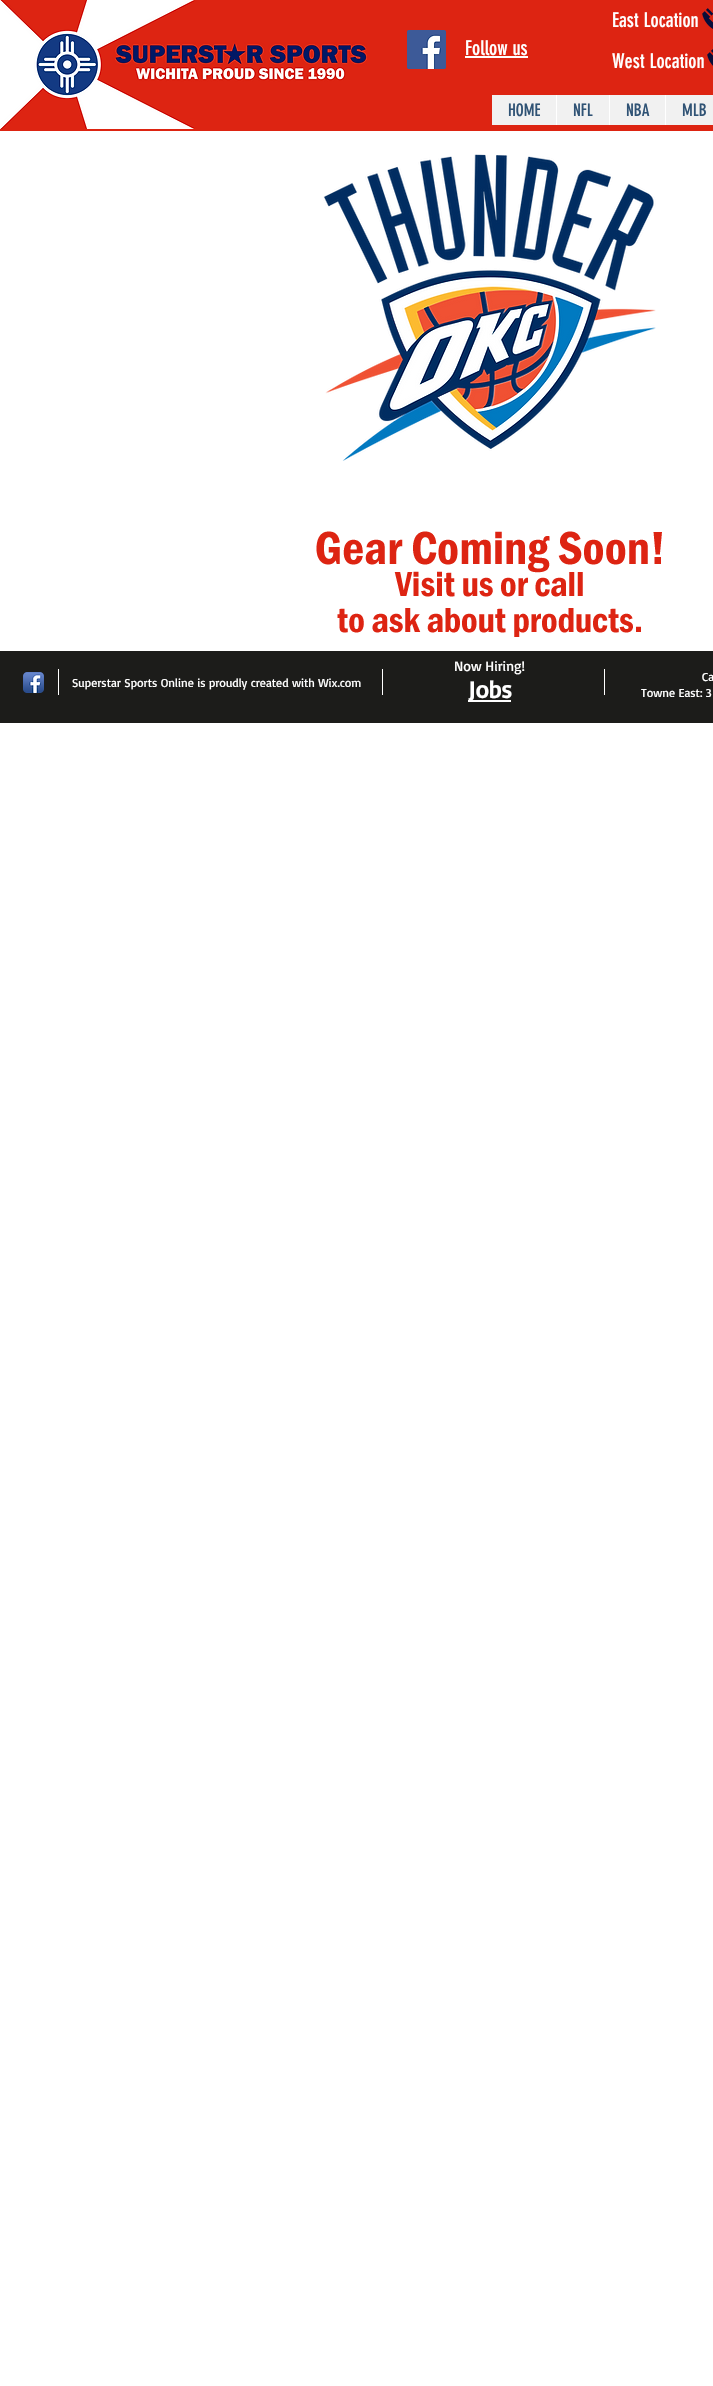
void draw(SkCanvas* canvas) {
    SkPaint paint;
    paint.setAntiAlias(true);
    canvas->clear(0xFFFFFFFF);
    paint.setColor(0xFFDD2412);
    canvas->drawRect(SkRect::MakeXYWH(0, 0, 713, 131), paint);
    canvas->drawImageRect(SkImages::DeferredFromEncodedData(SkData::MakeFromFileName("img1.png")), SkRect::MakeXYWH(0, 0, 367, 129), SkSamplingOptions());
    SkFont font1(fontMgr->matchFamilyStyle("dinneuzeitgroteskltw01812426", SkFontStyle::Normal()), 20);
    font1.setSubpixel(true);
    paint.setColor(0xFFFFFFFF);
    canvas->drawString("East Location", 612, 27, font1, paint);
    canvas->drawImageRect(SkImages::DeferredFromEncodedData(SkData::MakeFromFileName("img2.png")), SkRect::MakeXYWH(702, 8, 11, 21), SkSamplingOptions());
    canvas->drawImageRect(SkImages::DeferredFromEncodedData(SkData::MakeFromFileName("img3.png")), SkRect::MakeXYWH(407, 30, 39, 39), SkSamplingOptions());
    canvas->drawString("Follow us", 465, 55, font1, paint);
    canvas->drawRect(SkRect::MakeXYWH(465, 56, 63, 2), paint);
    canvas->drawString("West Location", 612, 68, font1, paint);
    canvas->drawImageRect(SkImages::DeferredFromEncodedData(SkData::MakeFromFileName("img4.png")), SkRect::MakeXYWH(707, 49, 6, 17), SkSamplingOptions());
    paint.setColor(0xFFF1F1F1);
    canvas->drawRect(SkRect::MakeXYWH(492, 95, 221, 30), paint);
    SkFont font2(fontMgr->matchFamilyStyle("dinneuzeitgroteskltw01812426", SkFontStyle::Normal()), 17);
    font2.setSubpixel(true);
    paint.setColor(0xFF305375);
    canvas->drawString("HOME", 508, 116, font2, paint);
    paint.setColor(0xFFFFFFFF);
    canvas->drawRect(SkRect::MakeXYWH(556, 95, 1, 30), paint);
    paint.setColor(0xFF305375);
    canvas->drawString("NFL", 573, 116, font2, paint);
    paint.setColor(0xFFFFFFFF);
    canvas->drawRect(SkRect::MakeXYWH(609, 95, 1, 30), paint);
    paint.setColor(0xFF305375);
    canvas->drawString("NBA", 626, 116, font2, paint);
    paint.setColor(0xFFFFFFFF);
    canvas->drawRect(SkRect::MakeXYWH(665, 95, 1, 30), paint);
    paint.setColor(0xFF305375);
    canvas->drawString("MLB", 682, 116, font2, paint);
    canvas->drawImageRect(SkImages::DeferredFromEncodedData(SkData::MakeFromFileName("img5.png")), SkRect::MakeXYWH(323, 154, 333, 307), SkSamplingOptions());
    canvas->drawImageRect(SkImages::DeferredFromEncodedData(SkData::MakeFromFileName("img6.png")), SkRect::MakeXYWH(316, 531, 346, 106), SkSamplingOptions());
    paint.setColor(0xFF1C1C1A);
    canvas->drawRect(SkRect::MakeXYWH(0, 651, 713, 72), paint);
    canvas->drawImageRect(SkImages::DeferredFromEncodedData(SkData::MakeFromFileName("img7.png")), SkRect::MakeXYWH(23, 672, 21, 21), SkSamplingOptions());
    paint.setColor(0xFFFFFFFF);
    canvas->drawRect(SkRect::MakeXYWH(58, 669, 1, 26), paint);
    SkFont font3(fontMgr->matchFamilyStyle("Basic", SkFontStyle::Normal()), 12);
    font3.setSubpixel(true);
    canvas->drawString("Superstar Sports Online is proudly created with Wix.com", 72, 687, font3, paint);
    canvas->drawRect(SkRect::MakeXYWH(382, 669, 1, 26), paint);
    SkFont font4(fontMgr->matchFamilyStyle("Basic", SkFontStyle::Normal()), 14);
    font4.setSubpixel(true);
    canvas->drawString("Now Hiring!", 454, 671, font4, paint);
    canvas->drawRect(SkRect::MakeXYWH(468, 700, 43, 2), paint);
    SkFont font5(fontMgr->matchFamilyStyle("Basic", SkFontStyle::Bold()), 24);
    font5.setSubpixel(true);
    canvas->drawString("Jobs", 468, 698, font5, paint);
    canvas->drawRect(SkRect::MakeXYWH(604, 669, 1, 26), paint);
    canvas->drawString("Ca", 702, 681, font3, paint);
    canvas->drawString("Towne East: 3", 641, 697, font3, paint);
}
